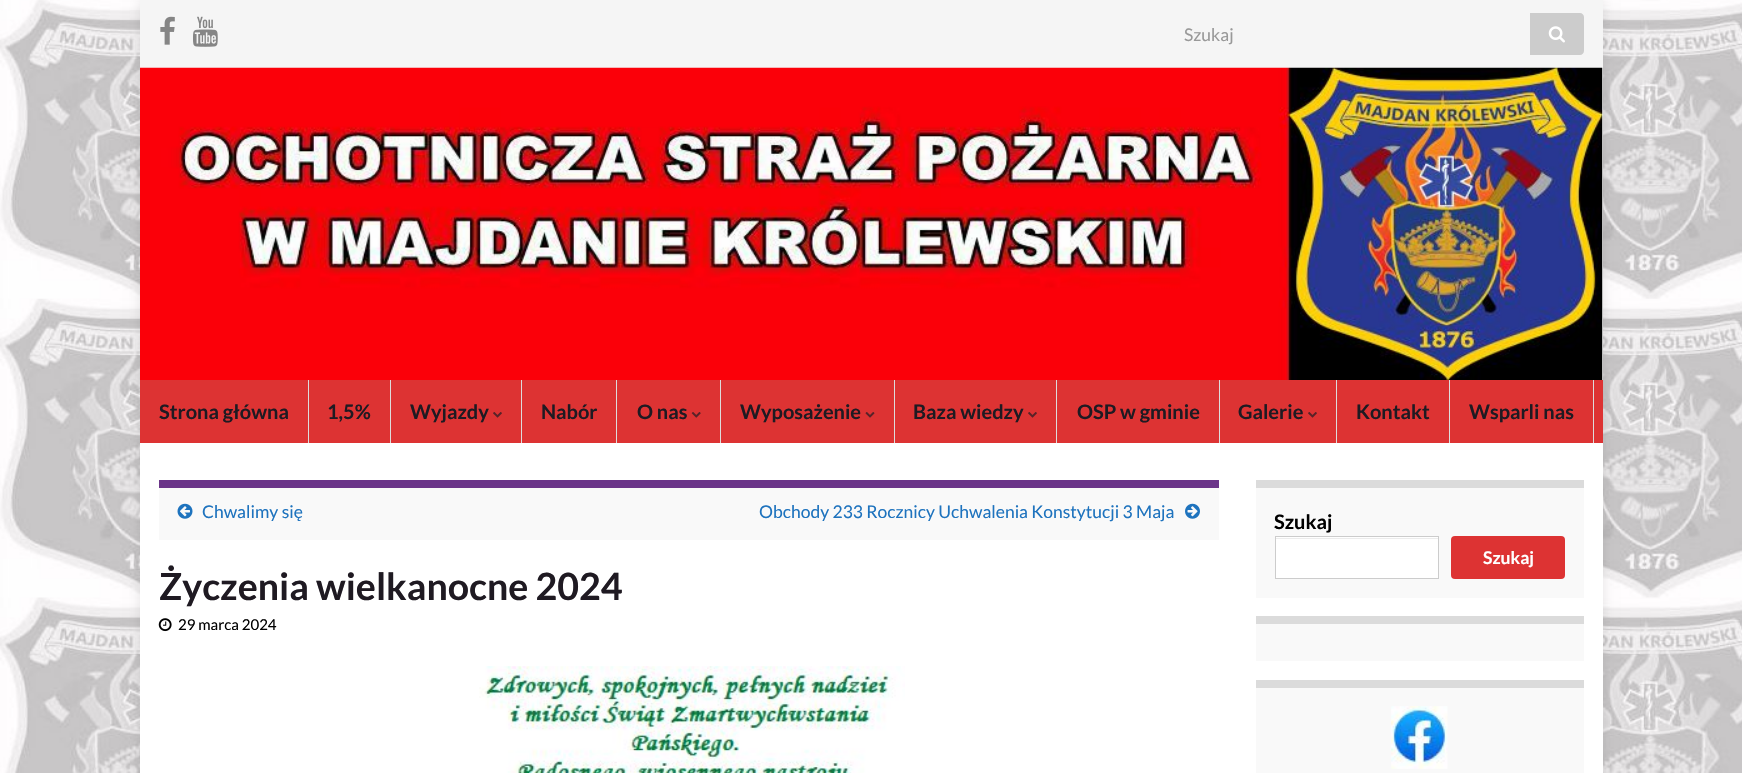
void draw(SkCanvas* canvas) {
    SkPaint paint;
    paint.setAntiAlias(true);
    canvas->clear(0xFFFFFFFF);
    canvas->drawImageRect(SkImages::DeferredFromEncodedData(SkData::MakeFromFileName("img1.png")), SkRect::MakeXYWH(0, 0, 1742, 773), SkSamplingOptions());
    paint.setColor(0x1A000000);
    paint.setMaskFilter(SkMaskFilter::MakeBlur(kNormal_SkBlurStyle, 6));
    canvas->drawRect(SkRect::MakeXYWH(140, 0, 1463, 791), paint);
    paint.setMaskFilter(nullptr);
    paint.setColor(0xFFF5F5F5);
    canvas->drawRect(SkRect::MakeXYWH(140, 0, 1463, 68), paint);
    canvas->drawImageRect(SkImages::DeferredFromEncodedData(SkData::MakeFromFileName("img2.png")), SkRect::MakeXYWH(160, 16, 15, 29), SkSamplingOptions());
    canvas->drawImageRect(SkImages::DeferredFromEncodedData(SkData::MakeFromFileName("img3.png")), SkRect::MakeXYWH(193, 16, 25, 31), SkSamplingOptions());
    SkFont font1(fontMgr->matchFamilyStyle("Lato", SkFontStyle::Normal()), 17.5f);
    font1.setSubpixel(true);
    paint.setColor(0xFF999999);
    canvas->drawString("Szukaj", 1184, 41, font1, paint);
    paint.setColor(0xFFCCCCCC);
    canvas->drawPath(SkPathBuilder().moveTo(1530, 13).lineTo(1580, 13).cubicTo(1582, 13, 1584, 15, 1584, 17).lineTo(1584, 51).cubicTo(1584, 53, 1582, 55, 1580, 55).lineTo(1530, 55).close().detach(), paint);
    canvas->drawImageRect(SkImages::DeferredFromEncodedData(SkData::MakeFromFileName("img4.png")), SkRect::MakeXYWH(1548, 26, 17, 17), SkSamplingOptions());
    paint.setColor(0xFFFFFFFF);
    canvas->drawRect(SkRect::MakeXYWH(1602, 68, 1, 312), paint);
    canvas->drawImageRect(SkImages::DeferredFromEncodedData(SkData::MakeFromFileName("img5.png")), SkRect::MakeXYWH(140, 67, 1463, 313), SkSamplingOptions());
    paint.setColor(0xFFDD3333);
    canvas->drawRect(SkRect::MakeXYWH(140, 380, 1463, 63), paint);
    paint.setColor(0xFFDDDDDD);
    canvas->drawRect(SkRect::MakeXYWH(308, 380, 1, 63), paint);
    SkFont font2(fontMgr->matchFamilyStyle("Lato", SkFontStyle::Bold()), 20);
    font2.setSubpixel(true);
    paint.setColor(0xFF1F1A22);
    canvas->drawString("Strona główna", 159, 419, font2, paint);
    paint.setColor(0xFFDDDDDD);
    canvas->drawRect(SkRect::MakeXYWH(390, 380, 1, 63), paint);
    paint.setColor(0xFF1F1A22);
    canvas->drawString("1,5%", 327, 419, font2, paint);
    paint.setColor(0xFFDDDDDD);
    canvas->drawRect(SkRect::MakeXYWH(521, 380, 1, 63), paint);
    paint.setColor(0xFF1F1A22);
    canvas->drawString("Wyjazdy", 410, 419, font2, paint);
    canvas->drawImageRect(SkImages::DeferredFromEncodedData(SkData::MakeFromFileName("img6.png")), SkRect::MakeXYWH(493, 412, 9, 6), SkSamplingOptions());
    paint.setColor(0xFFDDDDDD);
    canvas->drawRect(SkRect::MakeXYWH(616, 380, 1, 63), paint);
    paint.setColor(0xFF1F1A22);
    canvas->drawString("Nabór", 541, 419, font2, paint);
    paint.setColor(0xFFDDDDDD);
    canvas->drawRect(SkRect::MakeXYWH(720, 380, 1, 63), paint);
    paint.setColor(0xFF1F1A22);
    canvas->drawString("O nas", 637, 419, font2, paint);
    canvas->drawImageRect(SkImages::DeferredFromEncodedData(SkData::MakeFromFileName("img7.png")), SkRect::MakeXYWH(691, 412, 10, 6), SkSamplingOptions());
    paint.setColor(0xFFDDDDDD);
    canvas->drawRect(SkRect::MakeXYWH(894, 380, 1, 63), paint);
    paint.setColor(0xFF1F1A22);
    canvas->drawString("Wyposażenie", 740, 419, font2, paint);
    canvas->drawImageRect(SkImages::DeferredFromEncodedData(SkData::MakeFromFileName("img8.png")), SkRect::MakeXYWH(865, 412, 10, 6), SkSamplingOptions());
    paint.setColor(0xFFDDDDDD);
    canvas->drawRect(SkRect::MakeXYWH(1056, 380, 1, 63), paint);
    paint.setColor(0xFF1F1A22);
    canvas->drawString("Baza wiedzy", 913, 419, font2, paint);
    canvas->drawImageRect(SkImages::DeferredFromEncodedData(SkData::MakeFromFileName("img6.png")), SkRect::MakeXYWH(1028, 412, 9, 6), SkSamplingOptions());
    paint.setColor(0xFFDDDDDD);
    canvas->drawRect(SkRect::MakeXYWH(1219, 380, 1, 63), paint);
    paint.setColor(0xFF1F1A22);
    canvas->drawString("OSP w gminie", 1077, 419, font2, paint);
    paint.setColor(0xFFDDDDDD);
    canvas->drawRect(SkRect::MakeXYWH(1336, 380, 1, 63), paint);
    paint.setColor(0xFF1F1A22);
    canvas->drawString("Galerie", 1238, 419, font2, paint);
    canvas->drawImageRect(SkImages::DeferredFromEncodedData(SkData::MakeFromFileName("img6.png")), SkRect::MakeXYWH(1308, 412, 9, 6), SkSamplingOptions());
    paint.setColor(0xFFDDDDDD);
    canvas->drawRect(SkRect::MakeXYWH(1449, 380, 1, 63), paint);
    paint.setColor(0xFF1F1A22);
    canvas->drawString("Kontakt", 1356, 419, font2, paint);
    paint.setColor(0xFFDDDDDD);
    canvas->drawRect(SkRect::MakeXYWH(1593, 380, 1, 63), paint);
    paint.setColor(0xFF1F1A22);
    canvas->drawString("Wsparli nas", 1469, 419, font2, paint);
    paint.setColor(0xFFFFFFFF);
    canvas->drawRect(SkRect::MakeXYWH(140, 443, 1463, 330), paint);
    paint.setColor(0xFFF9F9F9);
    canvas->drawRect(SkRect::MakeXYWH(159, 488, 1060, 52), paint);
    paint.setColor(0xFF6B3589);
    canvas->drawRect(SkRect::MakeXYWH(159, 480, 1060, 8), paint);
    canvas->drawImageRect(SkImages::DeferredFromEncodedData(SkData::MakeFromFileName("img9.png")), SkRect::MakeXYWH(177, 503, 16, 16), SkSamplingOptions());
    paint.setColor(0xFF1E73BE);
    canvas->drawString("Chwalimy się", 202, 518, font1, paint);
    canvas->drawString("Obchody 233 Rocznicy Uchwalenia Konstytucji 3 Maja", 759, 518, font1, paint);
    canvas->drawImageRect(SkImages::DeferredFromEncodedData(SkData::MakeFromFileName("img10.png")), SkRect::MakeXYWH(1185, 503, 15, 16), SkSamplingOptions());
    SkFont font3(fontMgr->matchFamilyStyle("Lato", SkFontStyle::Bold()), 37.5f);
    font3.setSubpixel(true);
    paint.setColor(0xFF1F1A22);
    canvas->drawString("Życzenia wielkanocne 2024", 159, 600, font3, paint);
    canvas->drawImageRect(SkImages::DeferredFromEncodedData(SkData::MakeFromFileName("img11.png")), SkRect::MakeXYWH(158, 618, 14, 14), SkSamplingOptions());
    SkFont font4(fontMgr->matchFamilyStyle("Lato", SkFontStyle::Normal()), 15);
    font4.setSubpixel(true);
    paint.setColor(0xFF000000);
    canvas->drawString("29 marca 2024", 178, 630, font4, paint);
    canvas->drawImageRect(SkImages::DeferredFromEncodedData(SkData::MakeFromFileName("img12.png")), SkRect::MakeXYWH(479, 666, 426, 107), SkSamplingOptions());
    paint.setColor(0xFFF9F9F9);
    canvas->drawRect(SkRect::MakeXYWH(1256, 488, 328, 110), paint);
    paint.setColor(0xFFDBDBDB);
    canvas->drawRect(SkRect::MakeXYWH(1256, 480, 328, 8), paint);
    paint.setColor(0xFF000000);
    canvas->drawString("Szukaj", 1274, 529, font2, paint);
    paint.setColor(0xFFFFFFFF);
    canvas->drawRect(SkRect::MakeXYWH(1276, 537, 162, 41), paint);
    paint.setColor(0xFFECECEC);
    canvas->drawRect(SkRect::MakeXYWH(1276, 538, 162, 1), paint);
    paint.setStyle(SkPaint::kStroke_Style);
    paint.setStrokeWidth(1);
    paint.setColor(0xFFCCCCCC);
    canvas->drawRect(SkRect::MakeXYWH(1275.5f, 536.5f, 163, 42), paint);
    paint.setStyle(SkPaint::kFill_Style);
    paint.setColor(0xFFDD3333);
    canvas->drawRoundRect(SkRect::MakeXYWH(1451, 536, 114, 43), 4, 4, paint);
    SkFont font5(fontMgr->matchFamilyStyle("Lato", SkFontStyle::Bold()), 17.5f);
    font5.setSubpixel(true);
    paint.setColor(0xFFFFFFFF);
    canvas->drawString("Szukaj", 1483, 564, font5, paint);
    paint.setColor(0xFFF9F9F9);
    canvas->drawRect(SkRect::MakeXYWH(1256, 624, 328, 37), paint);
    paint.setColor(0xFFDBDBDB);
    canvas->drawRect(SkRect::MakeXYWH(1256, 616, 328, 8), paint);
    paint.setColor(0xFFF9F9F9);
    canvas->drawRect(SkRect::MakeXYWH(1256, 688, 328, 85), paint);
    paint.setColor(0xFFDBDBDB);
    canvas->drawRect(SkRect::MakeXYWH(1256, 680, 328, 8), paint);
    canvas->drawImageRect(SkImages::DeferredFromEncodedData(SkData::MakeFromFileName("img13.png")), SkRect::MakeXYWH(1391, 706, 57, 63), SkSamplingOptions());
}
